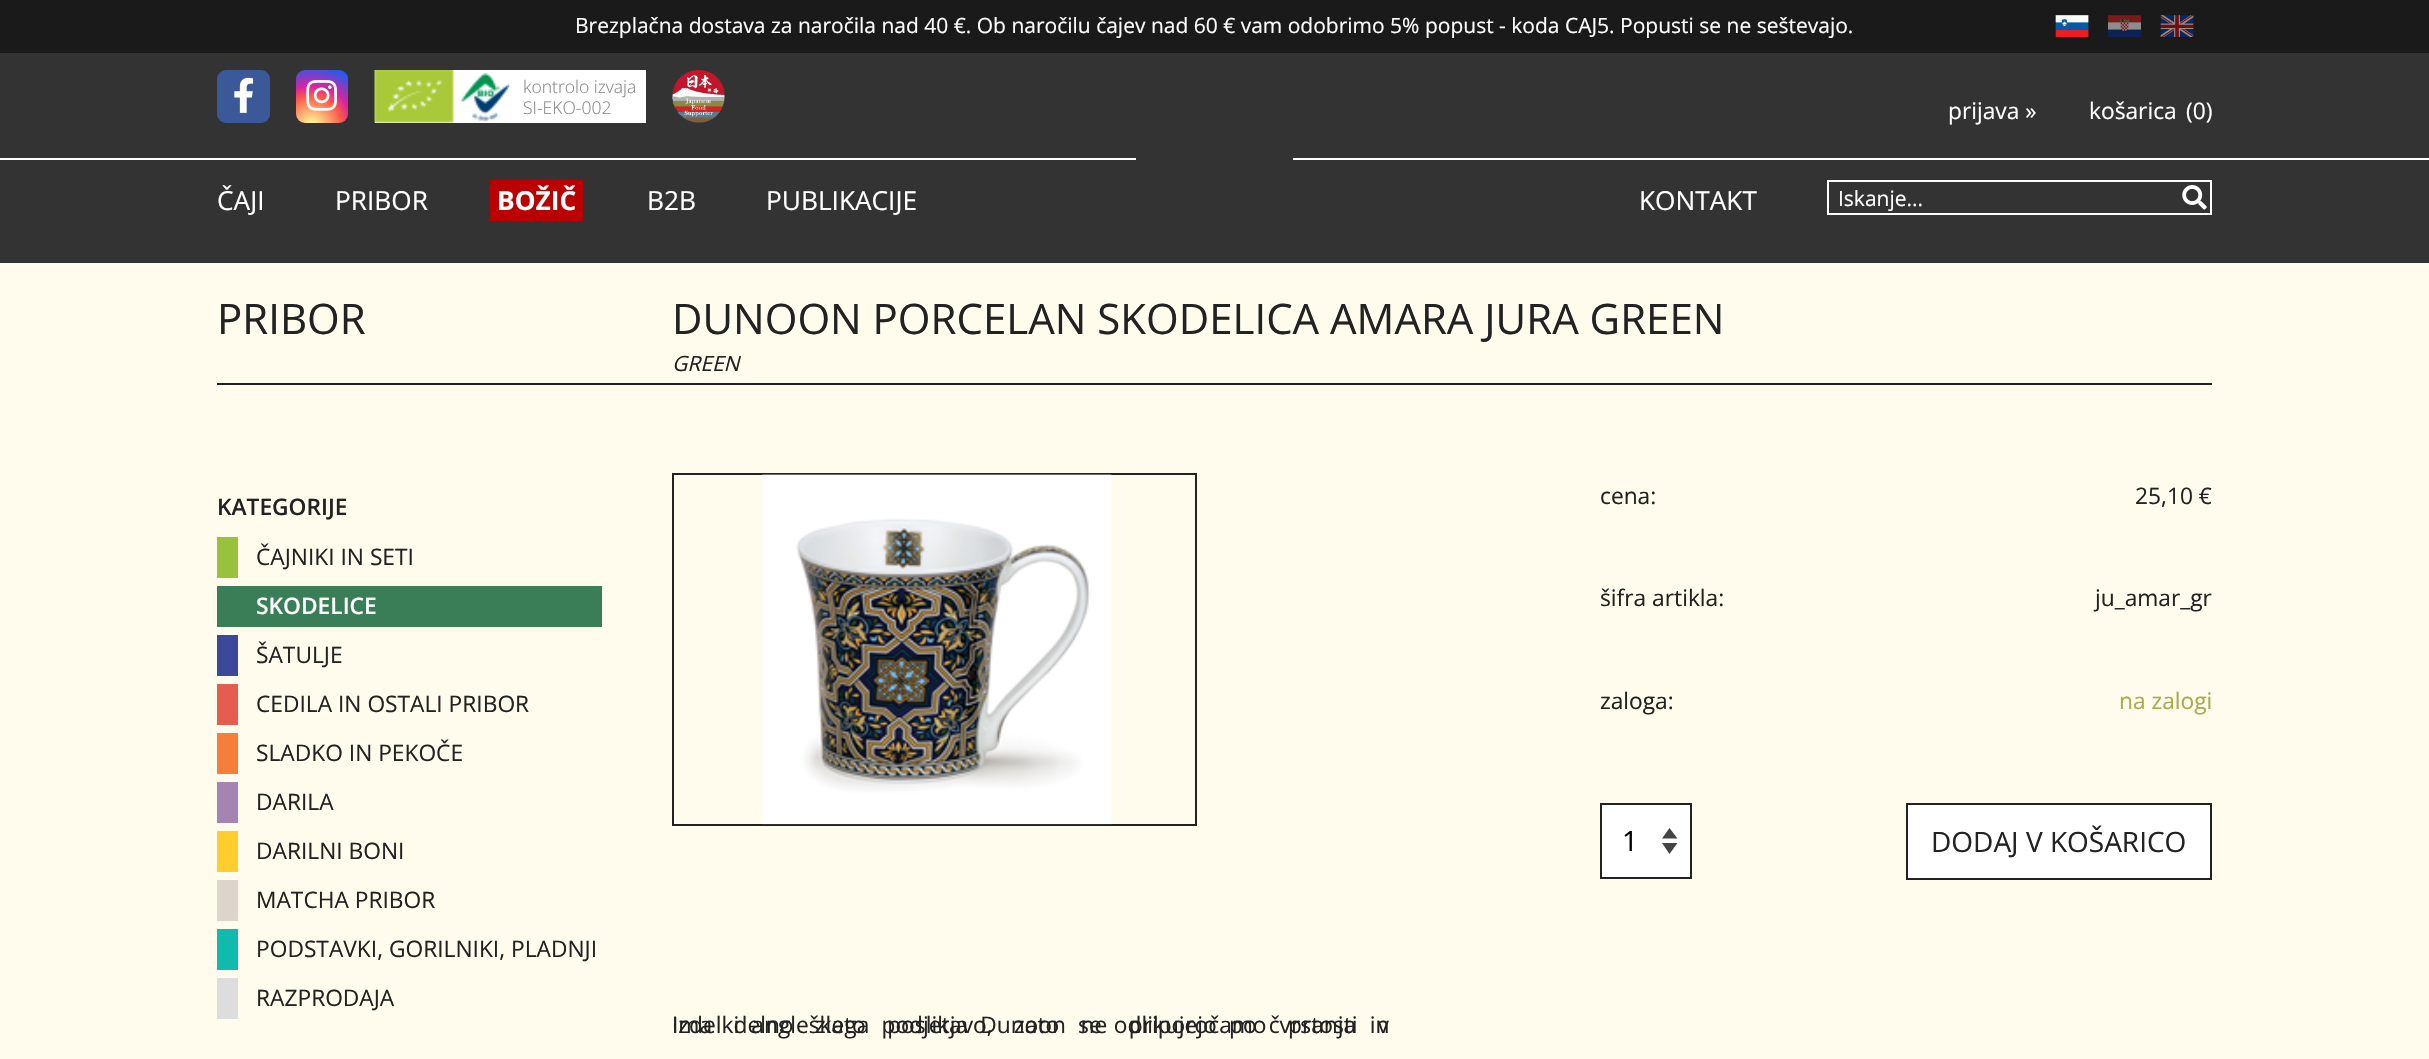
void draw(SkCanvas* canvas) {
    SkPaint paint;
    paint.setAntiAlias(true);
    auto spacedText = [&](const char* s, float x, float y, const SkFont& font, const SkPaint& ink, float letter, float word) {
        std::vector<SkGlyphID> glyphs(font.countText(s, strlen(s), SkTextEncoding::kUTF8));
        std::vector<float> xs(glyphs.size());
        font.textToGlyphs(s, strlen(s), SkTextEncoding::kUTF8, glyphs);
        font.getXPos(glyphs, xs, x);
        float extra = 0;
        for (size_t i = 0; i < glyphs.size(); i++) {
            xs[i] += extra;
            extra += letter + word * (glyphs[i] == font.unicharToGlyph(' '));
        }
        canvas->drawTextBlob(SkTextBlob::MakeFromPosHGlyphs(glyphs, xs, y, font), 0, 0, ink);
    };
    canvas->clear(0xFF333333);
    paint.setColor(0xFF1A1A1A);
    canvas->drawRect(SkRect::MakeXYWH(0, 0, 2429, 53), paint);
    SkFont font1(fontMgr->matchFamilyStyle("Open Sans", SkFontStyle::Normal()), 21);
    font1.setSubpixel(true);
    paint.setColor(0xFFFFFFFF);
    canvas->drawString("Brezplačna dostava za naročila nad 40 €. Ob naročilu čajev nad 60 € vam odobrimo 5% popust - koda CAJ5. Popusti se ne seštevajo.", 575, 33, font1, paint);
    canvas->drawImageRect(SkImages::DeferredFromEncodedData(SkData::MakeFromFileName("img1.png")), SkRect::MakeXYWH(2055, 15, 34, 22), SkSamplingOptions());
    canvas->drawImageRect(SkImages::DeferredFromEncodedData(SkData::MakeFromFileName("img2.png")), SkRect::MakeXYWH(2108, 15, 33, 22), SkSamplingOptions());
    canvas->drawImageRect(SkImages::DeferredFromEncodedData(SkData::MakeFromFileName("img3.png")), SkRect::MakeXYWH(2160, 15, 34, 22), SkSamplingOptions());
    paint.setColor(0xFF3B5998);
    canvas->drawRoundRect(SkRect::MakeXYWH(217, 70, 53, 53), 9, 9, paint);
    canvas->drawImageRect(SkImages::DeferredFromEncodedData(SkData::MakeFromFileName("img4.png")), SkRect::MakeXYWH(234, 77, 20, 36), SkSamplingOptions());
    {
        const SkColor colors[] = {0xFFFDF497, 0xFFFDF497, 0xFFFD5949, 0xFFD6249F, 0xFF285AEB};
        const float stops[] = {0, 0.05f, 0.45f, 0.6f, 0.9f};
        paint.setShader(SkGradientShader::MakeRadial({312, 126}, 67, colors, stops, 5, SkTileMode::kClamp));
        paint.setAlpha(255);
    }
    canvas->drawRoundRect(SkRect::MakeXYWH(296, 70, 52, 53), 9, 9, paint);
    canvas->drawImageRect(SkImages::DeferredFromEncodedData(SkData::MakeFromFileName("img5.png")), SkRect::MakeXYWH(306, 80, 31, 31), SkSamplingOptions());
    paint.setShader(nullptr);
    paint.setColor(0xFFFFFFFF);
    canvas->drawRect(SkRect::MakeXYWH(375, 70, 271, 53), paint);
    canvas->drawImageRect(SkImages::DeferredFromEncodedData(SkData::MakeFromFileName("img6.png")), SkRect::MakeXYWH(374, 70, 136, 53), SkSamplingOptions());
    SkFont font2(fontMgr->matchFamilyStyle("Open Sans", SkFontStyle(300, SkFontStyle::kNormal_Width, SkFontStyle::kUpright_Slant)), 17.5f);
    font2.setSubpixel(true);
    paint.setColor(0xFF888888);
    canvas->drawString("kontrolo izvaja", 523, 93, font2, paint);
    canvas->drawString("SI-EKO-002", 523, 114, font2, paint);
    canvas->drawImageRect(SkImages::DeferredFromEncodedData(SkData::MakeFromFileName("img7.png")), SkRect::MakeXYWH(672, 70, 53, 53), SkSamplingOptions());
    SkFont font3(fontMgr->matchFamilyStyle("Open Sans", SkFontStyle::Normal()), 22.75f);
    font3.setSubpixel(true);
    paint.setColor(0xFFFFFFFF);
    canvas->drawString("prijava »", 1948, 119, font3, paint);
    canvas->drawString("košarica", 2089, 119, font3, paint);
    canvas->drawString("(0)", 2186, 119, font3, paint);
    SkFont font4(fontMgr->matchFamilyStyle("Open Sans", SkFontStyle::Normal()), 26.25f);
    font4.setSubpixel(true);
    canvas->drawString("ČAJI", 217, 210, font4, paint);
    canvas->drawString("PRIBOR", 335, 210, font4, paint);
    paint.setStyle(SkPaint::kStroke_Style);
    paint.setStrokeWidth(7);
    paint.setColor(0xFFBA0000);
    canvas->drawRect(SkRect::MakeXYWH(493.5f, 183.5f, 86, 34), paint);
    paint.setStyle(SkPaint::kFill_Style);
    canvas->drawRect(SkRect::MakeXYWH(497, 187, 79, 27), paint);
    SkFont font5(fontMgr->matchFamilyStyle("Open Sans", SkFontStyle::Bold()), 26.25f);
    font5.setSubpixel(true);
    paint.setColor(0xFFFFFFFF);
    canvas->drawString("BOŽIČ", 497, 210, font5, paint);
    canvas->drawString("B2B", 647, 210, font4, paint);
    canvas->drawString("PUBLIKACIJE", 766, 210, font4, paint);
    canvas->drawString("KONTAKT", 1639, 210, font4, paint);
    paint.setStyle(SkPaint::kStroke_Style);
    paint.setStrokeWidth(2);
    canvas->drawRect(SkRect::MakeXYWH(1828, 181, 383, 33), paint);
    paint.setStyle(SkPaint::kFill_Style);
    canvas->drawString("Iskanje...", 1838, 206, font1, paint);
    canvas->drawImageRect(SkImages::DeferredFromEncodedData(SkData::MakeFromFileName("img8.png")), SkRect::MakeXYWH(2182, 185, 25, 25), SkSamplingOptions());
    canvas->drawRect(SkRect::MakeXYWH(0, 158, 1136, 2), paint);
    canvas->drawRect(SkRect::MakeXYWH(1293, 158, 1136, 2), paint);
    paint.setColor(0xFFFFFCEE);
    canvas->drawRect(SkRect::MakeXYWH(0, 263, 2429, 796), paint);
    SkFont font6(fontMgr->matchFamilyStyle("Open Sans", SkFontStyle::Normal()), 42);
    font6.setSubpixel(true);
    paint.setColor(0xFF222222);
    canvas->drawString("PRIBOR", 217, 334, font6, paint);
    canvas->drawRect(SkRect::MakeXYWH(217, 383, 1995, 2), paint);
    canvas->drawString("DUNOON PORCELAN SKODELICA AMARA JURA GREEN", 672, 334, font6, paint);
    SkFont font7(fontMgr->matchFamilyStyle("Open Sans", SkFontStyle::Italic()), 21);
    font7.setSubpixel(true);
    canvas->drawString("GREEN", 672, 371, font7, paint);
    paint.setStyle(SkPaint::kStroke_Style);
    canvas->drawRect(SkRect::MakeXYWH(673, 474, 523, 351), paint);
    canvas->drawImageRect(SkImages::DeferredFromEncodedData(SkData::MakeFromFileName("img9.png")), SkRect::MakeXYWH(761, 474, 351, 351), SkSamplingOptions());
    paint.setStyle(SkPaint::kFill_Style);
    canvas->drawString("cena:", 1600, 504, font3, paint);
    canvas->drawString("25,10 €", 2135, 504, font3, paint);
    canvas->drawString("šifra artikla:", 1600, 606, font3, paint);
    canvas->drawString("ju_amar_gr", 2095, 606, font3, paint);
    canvas->drawString("zaloga:", 1600, 709, font3, paint);
    paint.setColor(0xFFA9AB4C);
    canvas->drawString("na zalogi", 2119, 709, font3, paint);
    paint.setColor(0xFFFFFFFF);
    canvas->drawRect(SkRect::MakeXYWH(1602, 805, 88, 72), paint);
    paint.setColor(0xFF444444);
    canvas->drawPath(SkPathBuilder().moveTo(1662, 838.5f).lineTo(1669.5f, 828).lineTo(1677.5f, 838.5f).close().moveTo(1677.5f, 843).lineTo(1669.5f, 854).lineTo(1662, 843).close().detach(), paint);
    paint.setStyle(SkPaint::kStroke_Style);
    paint.setColor(0xFF222222);
    canvas->drawRect(SkRect::MakeXYWH(1601, 804, 90, 74), paint);
    SkFont font8(fontMgr->matchFamilyStyle("Open Sans", SkFontStyle::Normal()), 28);
    font8.setSubpixel(true);
    paint.setStyle(SkPaint::kFill_Style);
    paint.setColor(0xFF000000);
    canvas->drawString("1", 1622, 851, font8, paint);
    paint.setColor(0xFFFFFFFF);
    canvas->drawRect(SkRect::MakeXYWH(1907, 804, 304, 75), paint);
    paint.setStyle(SkPaint::kStroke_Style);
    paint.setColor(0xFF222222);
    canvas->drawRect(SkRect::MakeXYWH(1907, 804, 304, 75), paint);
    paint.setStyle(SkPaint::kFill_Style);
    canvas->drawString("DODAJ V KOŠARICO", 1931, 852, font8, paint);
    spacedText("Izdelki angleškega podjetja Dunoon se odlikujejo po čvrstosti in", 672, 1033, font3, paint, 0, 6.25f);
    spacedText("Ima delno zlato poslikavo, zato ne priporočamo pranja v", 672, 1033, font3, paint, 0, 15.5f);
    SkFont font9(fontMgr->matchFamilyStyle("Open Sans", SkFontStyle(600, SkFontStyle::kNormal_Width, SkFontStyle::kUpright_Slant)), 22.75f);
    font9.setSubpixel(true);
    canvas->drawString("KATEGORIJE", 217, 515, font9, paint);
    paint.setColor(0xFF99C23C);
    canvas->drawRect(SkRect::MakeXYWH(217, 537, 21, 41), paint);
    paint.setColor(0xFF222222);
    canvas->drawString("ČAJNIKI IN SETI", 256, 565, font3, paint);
    paint.setColor(0xFF3A7E58);
    canvas->drawRect(SkRect::MakeXYWH(217, 586, 385, 41), paint);
    paint.setColor(0xFFFFFFFF);
    canvas->drawString("SKODELICE", 256, 614, font9, paint);
    paint.setColor(0xFF3C499B);
    canvas->drawRect(SkRect::MakeXYWH(217, 635, 21, 41), paint);
    paint.setColor(0xFF222222);
    canvas->drawString("ŠATULJE", 256, 663, font3, paint);
    paint.setColor(0xFFE45D4F);
    canvas->drawRect(SkRect::MakeXYWH(217, 684, 21, 41), paint);
    paint.setColor(0xFF222222);
    canvas->drawString("CEDILA IN OSTALI PRIBOR", 256, 712, font3, paint);
    paint.setColor(0xFFF47E3A);
    canvas->drawRect(SkRect::MakeXYWH(217, 733, 21, 41), paint);
    paint.setColor(0xFF222222);
    canvas->drawString("SLADKO IN PEKOČE", 256, 761, font3, paint);
    paint.setColor(0xFFA485B1);
    canvas->drawRect(SkRect::MakeXYWH(217, 782, 21, 41), paint);
    paint.setColor(0xFF222222);
    canvas->drawString("DARILA", 256, 810, font3, paint);
    paint.setColor(0xFFFFCE2E);
    canvas->drawRect(SkRect::MakeXYWH(217, 831, 21, 41), paint);
    paint.setColor(0xFF222222);
    canvas->drawString("DARILNI BONI", 256, 859, font3, paint);
    paint.setColor(0xFFDDD5CC);
    canvas->drawRect(SkRect::MakeXYWH(217, 880, 21, 41), paint);
    paint.setColor(0xFF222222);
    canvas->drawString("MATCHA PRIBOR", 256, 908, font3, paint);
    paint.setColor(0xFF10BAAD);
    canvas->drawRect(SkRect::MakeXYWH(217, 929, 21, 41), paint);
    paint.setColor(0xFF222222);
    canvas->drawString("PODSTAVKI, GORILNIKI, PLADNJI", 256, 957, font3, paint);
    paint.setColor(0xFFDDDDDD);
    canvas->drawRect(SkRect::MakeXYWH(217, 978, 21, 41), paint);
    paint.setColor(0xFF222222);
    canvas->drawString("RAZPRODAJA", 256, 1006, font3, paint);
}
